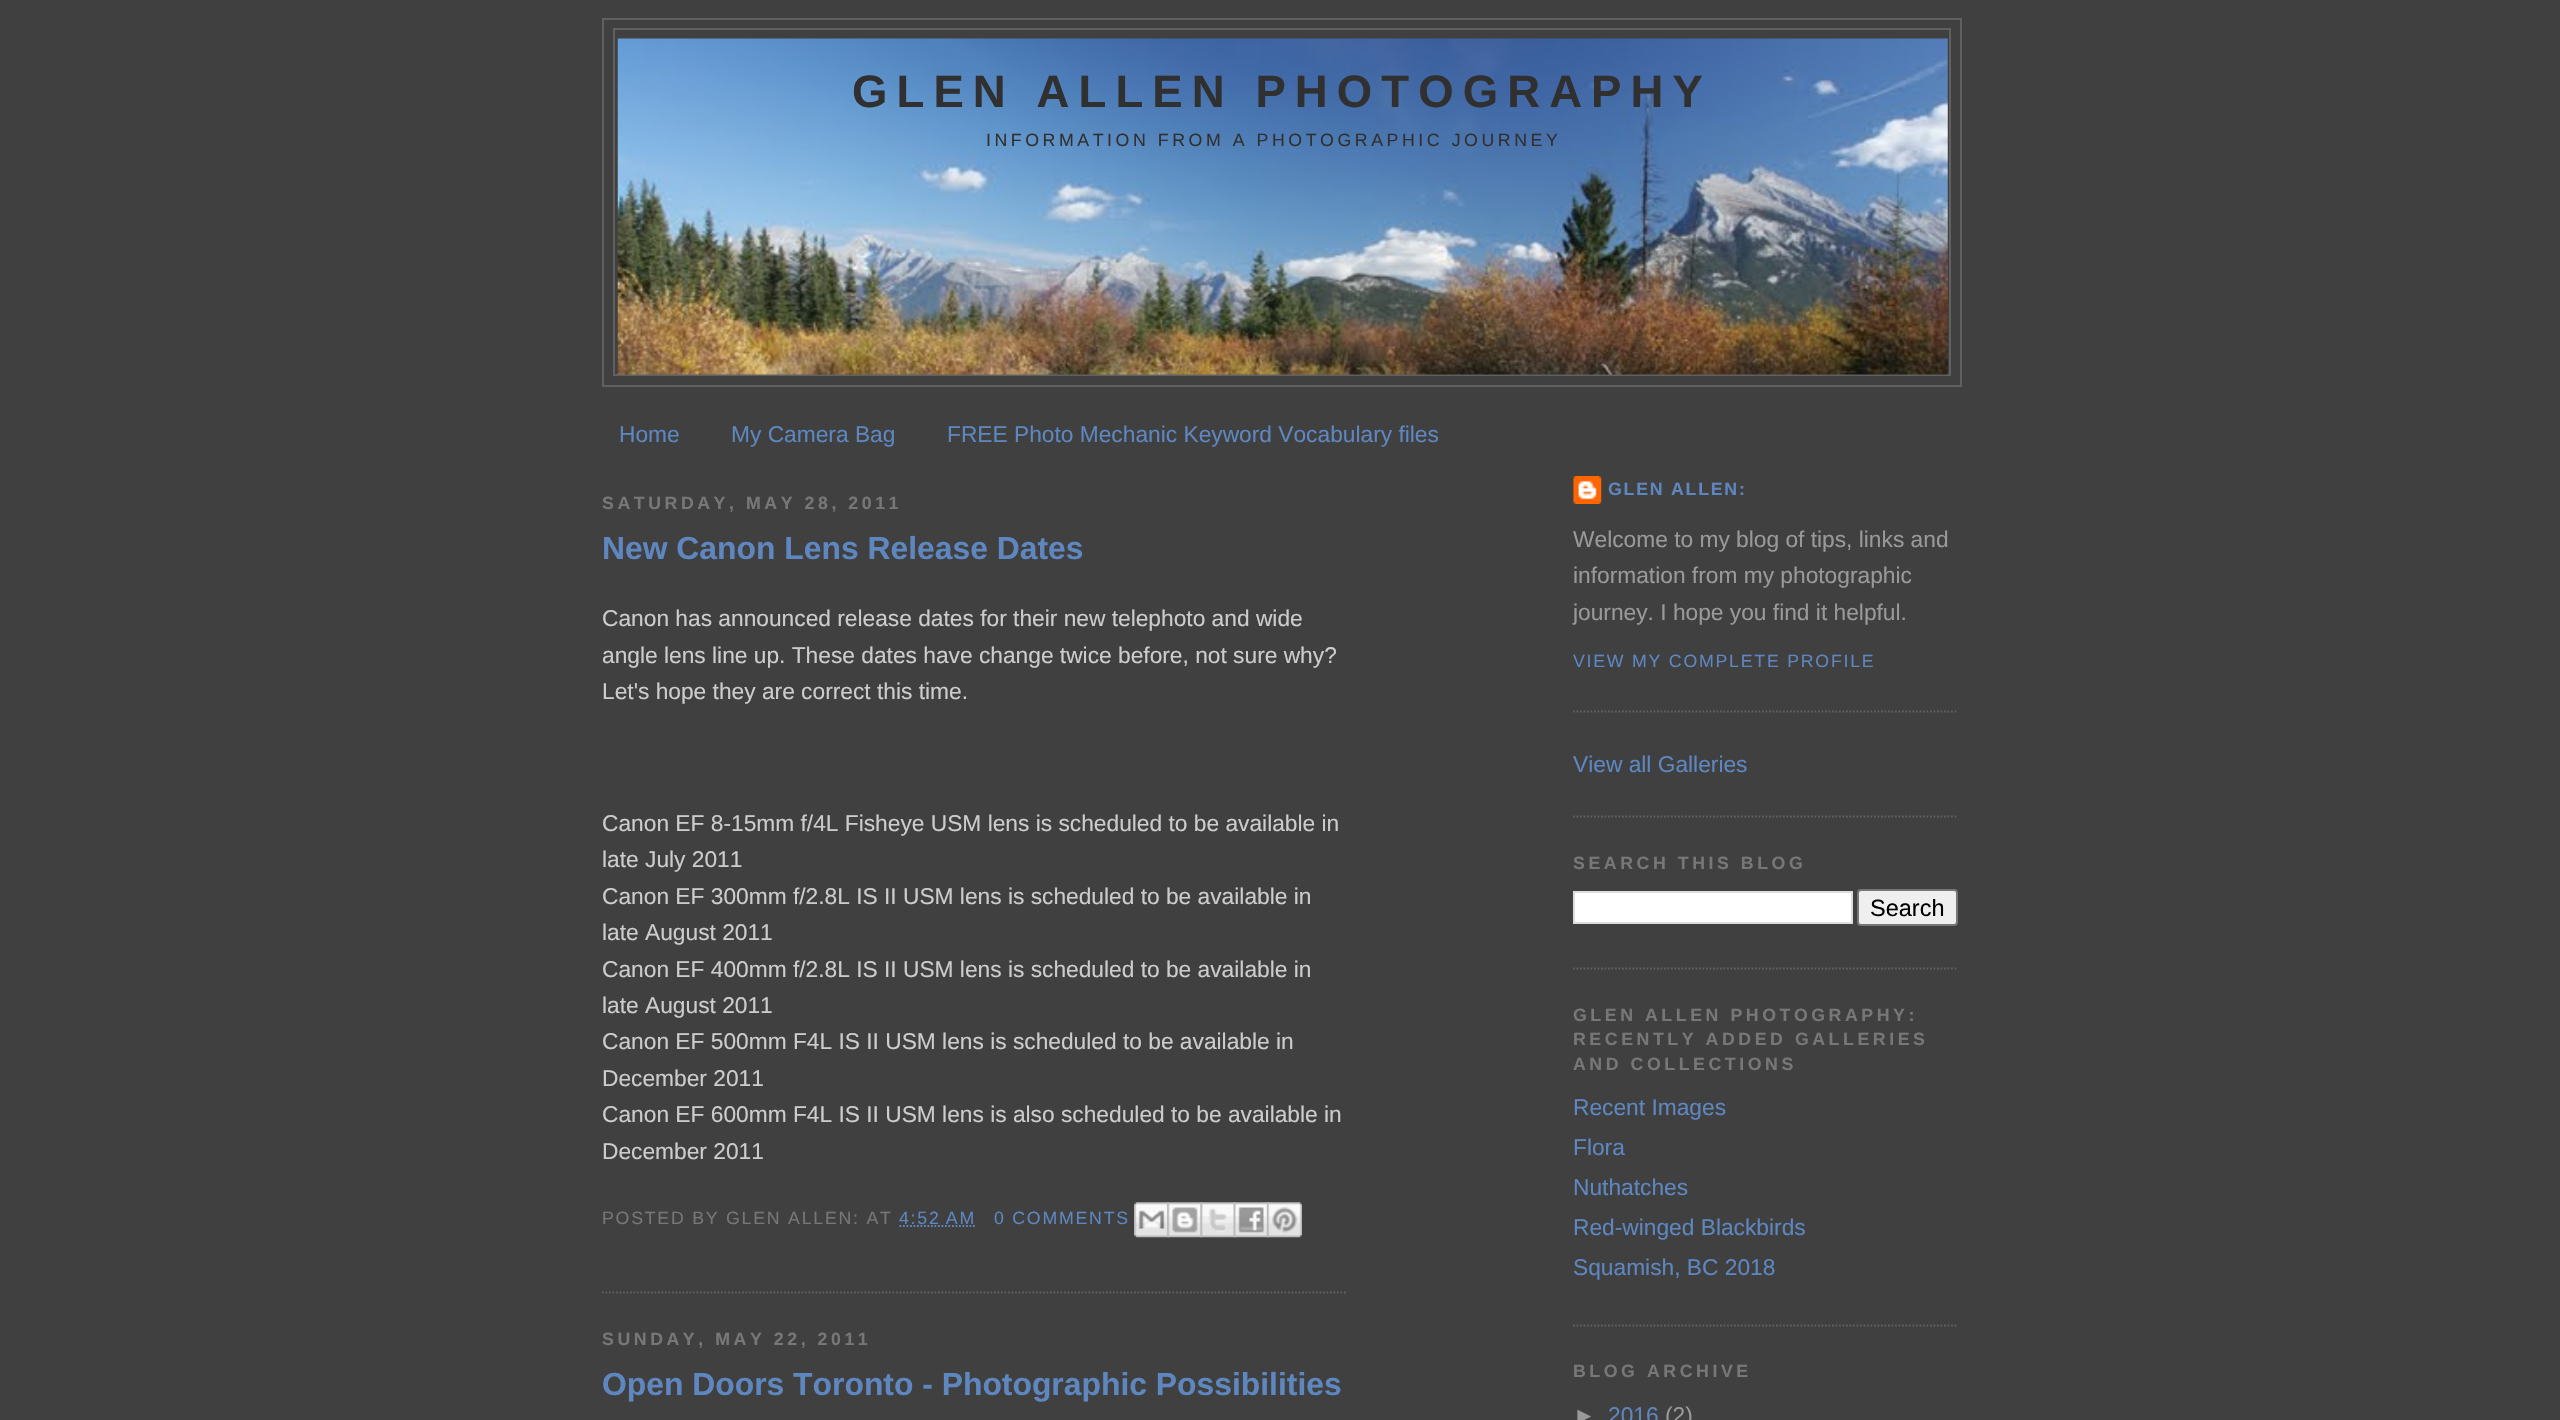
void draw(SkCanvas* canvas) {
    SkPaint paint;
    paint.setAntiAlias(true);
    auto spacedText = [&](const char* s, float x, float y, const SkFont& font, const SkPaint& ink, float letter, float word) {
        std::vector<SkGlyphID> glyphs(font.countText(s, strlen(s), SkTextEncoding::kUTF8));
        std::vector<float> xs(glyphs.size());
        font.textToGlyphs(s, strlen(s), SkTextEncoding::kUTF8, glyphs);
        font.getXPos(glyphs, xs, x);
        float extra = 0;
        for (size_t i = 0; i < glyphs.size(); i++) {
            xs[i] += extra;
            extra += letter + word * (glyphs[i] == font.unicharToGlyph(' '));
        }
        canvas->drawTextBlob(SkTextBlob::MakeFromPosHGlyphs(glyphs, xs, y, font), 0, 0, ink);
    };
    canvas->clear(0xFF404040);
    paint.setStyle(SkPaint::kStroke_Style);
    paint.setStrokeWidth(2);
    paint.setColor(0xFF606060);
    canvas->drawRect(SkRect::MakeXYWH(603, 19, 1358, 367), paint);
    canvas->drawRect(SkRect::MakeXYWH(614, 29, 1336, 346), paint);
    canvas->drawImageRect(SkImages::DeferredFromEncodedData(SkData::MakeFromFileName("img1.png")), SkRect::MakeXYWH(617, 38, 1331, 337), SkSamplingOptions());
    SkFont font1(fontMgr->matchFamilyStyle("Liberation Sans", SkFontStyle::Bold()), 45.5f);
    font1.setSubpixel(true);
    paint.setStyle(SkPaint::kFill_Style);
    paint.setColor(0xFF303030);
    spacedText("GLEN ALLEN PHOTOGRAPHY", 852, 107, font1, paint, 9.1f, 0);
    SkFont font2(fontMgr->matchFamilyStyle("Liberation Sans", SkFontStyle::Normal()), 17.75f);
    font2.setSubpixel(true);
    spacedText("INFORMATION FROM A PHOTOGRAPHIC JOURNEY", 986, 146, font2, paint, 3.55f, 0);
    SkFont font3(fontMgr->matchFamilyStyle("Liberation Sans", SkFontStyle::Normal()), 22.75f);
    font3.setSubpixel(true);
    paint.setColor(0xFF5E86BF);
    canvas->drawString("Home", 619, 442, font3, paint);
    canvas->drawString("My Camera Bag", 731, 442, font3, paint);
    canvas->drawString("FREE Photo Mechanic Keyword Vocabulary files", 947, 442, font3, paint);
    SkFont font4(fontMgr->matchFamilyStyle("Liberation Sans", SkFontStyle::Bold()), 17.75f);
    font4.setSubpixel(true);
    paint.setColor(0xFF777777);
    spacedText("SATURDAY, MAY 28, 2011", 602, 509, font4, paint, 3.55f, 0);
    paint.setStyle(SkPaint::kStroke_Style);
    paint.setStrokeWidth(1.8f);
    paint.setColor(0xFF606060);
    paint.setPathEffect(SkDashPathEffect::Make({{1.75f, 1.75f}}, 0));
    canvas->drawPath(SkPathBuilder().moveTo(602, 1292.5f).lineTo(1346, 1292.5f).detach(), paint);
    paint.setPathEffect(nullptr);
    SkFont font5(fontMgr->matchFamilyStyle("Liberation Sans", SkFontStyle::Bold()), 31.85f);
    font5.setSubpixel(true);
    paint.setStyle(SkPaint::kFill_Style);
    paint.setColor(0xFF5E86BF);
    canvas->drawString("New Canon Lens Release Dates", 602, 559, font5, paint);
    paint.setColor(0xFFCCCCCC);
    canvas->drawString("Canon has announced release dates for their new telephoto and wide", 602, 626, font3, paint);
    canvas->drawString("angle lens line up. These dates have change twice before, not sure why?", 602, 663, font3, paint);
    canvas->drawString("Let's hope they are correct this time.", 602, 699, font3, paint);
    canvas->drawString("Canon EF 8-15mm f/4L Fisheye USM lens is scheduled to be available in", 602, 831, font3, paint);
    canvas->drawString("late July 2011", 602, 867, font3, paint);
    canvas->drawString("Canon EF 300mm f/2.8L IS II USM lens is scheduled to be available in", 602, 904, font3, paint);
    canvas->drawString("late August 2011", 602, 940, font3, paint);
    canvas->drawString("Canon EF 400mm f/2.8L IS II USM lens is scheduled to be available in", 602, 977, font3, paint);
    canvas->drawString("late August 2011", 602, 1013, font3, paint);
    canvas->drawString("Canon EF 500mm F4L IS II USM lens is scheduled to be available in", 602, 1049, font3, paint);
    canvas->drawString("December 2011", 602, 1086, font3, paint);
    canvas->drawString("Canon EF 600mm F4L IS II USM lens is also scheduled to be available in", 602, 1122, font3, paint);
    canvas->drawString("December 2011", 602, 1159, font3, paint);
    paint.setColor(0xFF777777);
    spacedText("POSTED BY GLEN ALLEN: AT", 602, 1224, font2, paint, 1.75f, 0);
    paint.setColor(0xFF5E86BF);
    spacedText("4:52 AM", 899, 1224, font2, paint, 1.75f, 0);
    paint.setStyle(SkPaint::kStroke_Style);
    paint.setPathEffect(SkDashPathEffect::Make({{1.75f, 1.75f}}, 0));
    canvas->drawPath(SkPathBuilder().moveTo(899.5f, 1226).lineTo(976.5f, 1226).detach(), paint);
    paint.setPathEffect(nullptr);
    paint.setStyle(SkPaint::kFill_Style);
    spacedText("0 COMMENTS", 994, 1224, font2, paint, 1.75f, 0);
    canvas->drawImageRect(SkImages::DeferredFromEncodedData(SkData::MakeFromFileName("img2.png")), SkRect::MakeXYWH(1134, 1202, 35, 36), SkSamplingOptions());
    canvas->drawImageRect(SkImages::DeferredFromEncodedData(SkData::MakeFromFileName("img3.png")), SkRect::MakeXYWH(1167, 1202, 36, 36), SkSamplingOptions());
    canvas->drawImageRect(SkImages::DeferredFromEncodedData(SkData::MakeFromFileName("img4.png")), SkRect::MakeXYWH(1200, 1202, 36, 36), SkSamplingOptions());
    canvas->drawImageRect(SkImages::DeferredFromEncodedData(SkData::MakeFromFileName("img5.png")), SkRect::MakeXYWH(1233, 1202, 36, 36), SkSamplingOptions());
    canvas->drawImageRect(SkImages::DeferredFromEncodedData(SkData::MakeFromFileName("img6.png")), SkRect::MakeXYWH(1267, 1202, 35, 36), SkSamplingOptions());
    paint.setColor(0xFF777777);
    spacedText("SUNDAY, MAY 22, 2011", 602, 1345, font4, paint, 3.55f, 0);
    paint.setColor(0xFF5E86BF);
    canvas->drawString("Open Doors Toronto - Photographic Possibilities", 602, 1395, font5, paint);
    paint.setStyle(SkPaint::kStroke_Style);
    paint.setColor(0xFF606060);
    paint.setPathEffect(SkDashPathEffect::Make({{1.75f, 1.75f}}, 0));
    canvas->drawPath(SkPathBuilder().moveTo(1573, 711.5f).lineTo(1958, 711.5f).detach(), paint);
    paint.setPathEffect(nullptr);
    canvas->drawImageRect(SkImages::DeferredFromEncodedData(SkData::MakeFromFileName("img7.png")), SkRect::MakeXYWH(1573, 476, 29, 28), SkSamplingOptions());
    paint.setStyle(SkPaint::kFill_Style);
    paint.setColor(0xFF5E86BF);
    spacedText("GLEN ALLEN:", 1608, 495, font4, paint, 1.75f, 0);
    paint.setColor(0xFF999999);
    canvas->drawString("Welcome to my blog of tips, links and", 1573, 547, font3, paint);
    canvas->drawString("information from my photographic", 1573, 583, font3, paint);
    canvas->drawString("journey. I hope you find it helpful.", 1573, 620, font3, paint);
    paint.setColor(0xFF5E86BF);
    spacedText("VIEW MY COMPLETE PROFILE", 1573, 667, font2, paint, 1.75f, 0);
    paint.setStyle(SkPaint::kStroke_Style);
    paint.setColor(0xFF606060);
    paint.setPathEffect(SkDashPathEffect::Make({{1.75f, 1.75f}}, 0));
    canvas->drawPath(SkPathBuilder().moveTo(1573, 816.5f).lineTo(1958, 816.5f).detach(), paint);
    paint.setPathEffect(nullptr);
    paint.setStyle(SkPaint::kFill_Style);
    paint.setColor(0xFF5E86BF);
    canvas->drawString("View all Galleries", 1573, 772, font3, paint);
    paint.setStyle(SkPaint::kStroke_Style);
    paint.setColor(0xFF606060);
    paint.setPathEffect(SkDashPathEffect::Make({{1.75f, 1.75f}}, 0));
    canvas->drawPath(SkPathBuilder().moveTo(1573, 968.5f).lineTo(1958, 968.5f).detach(), paint);
    paint.setPathEffect(nullptr);
    paint.setStyle(SkPaint::kFill_Style);
    paint.setColor(0xFF777777);
    spacedText("SEARCH THIS BLOG", 1573, 869, font4, paint, 3.55f, 0);
    paint.setColor(0xFFFFFFFF);
    canvas->drawRect(SkRect::MakeXYWH(1574, 892, 278, 31), paint);
    paint.setStyle(SkPaint::kStroke_Style);
    paint.setStrokeWidth(2);
    paint.setColor(0xFFDDDDDD);
    canvas->drawRect(SkRect::MakeXYWH(1574, 892, 278, 31), paint);
    paint.setStyle(SkPaint::kFill_Style);
    paint.setColor(0xFFEFEFEF);
    canvas->drawRoundRect(SkRect::MakeXYWH(1858, 890, 99, 35), 3, 3, paint);
    paint.setStyle(SkPaint::kStroke_Style);
    paint.setColor(0xFF767676);
    canvas->drawRoundRect(SkRect::MakeXYWH(1858, 890, 99, 35), 3, 3, paint);
    SkFont font6(fontMgr->matchFamilyStyle("Liberation Sans", SkFontStyle::Normal()), 23.5f);
    font6.setSubpixel(true);
    paint.setStyle(SkPaint::kFill_Style);
    paint.setColor(0xFF000000);
    canvas->drawString("Search", 1870, 916, font6, paint);
    paint.setStyle(SkPaint::kStroke_Style);
    paint.setStrokeWidth(1.8f);
    paint.setColor(0xFF606060);
    paint.setPathEffect(SkDashPathEffect::Make({{1.75f, 1.75f}}, 0));
    canvas->drawPath(SkPathBuilder().moveTo(1573, 1325.5f).lineTo(1958, 1325.5f).detach(), paint);
    paint.setPathEffect(nullptr);
    paint.setStyle(SkPaint::kFill_Style);
    paint.setColor(0xFF777777);
    spacedText("GLEN ALLEN PHOTOGRAPHY:", 1573, 1021, font4, paint, 3.55f, 0);
    spacedText("RECENTLY ADDED GALLERIES", 1573, 1045, font4, paint, 3.55f, 0);
    spacedText("AND COLLECTIONS", 1573, 1070, font4, paint, 3.55f, 0);
    paint.setColor(0xFF5E86BF);
    canvas->drawString("Recent Images", 1573, 1115, font3, paint);
    canvas->drawString("Flora", 1573, 1155, font3, paint);
    canvas->drawString("Nuthatches", 1573, 1195, font3, paint);
    canvas->drawString("Red-winged Blackbirds", 1573, 1235, font3, paint);
    canvas->drawString("Squamish, BC 2018", 1573, 1275, font3, paint);
    paint.setColor(0xFF777777);
    spacedText("BLOG ARCHIVE", 1573, 1377, font4, paint, 3.55f, 0);
    paint.setColor(0xFF999999);
    canvas->drawString("►", 1573, 1423, font3, paint);
    paint.setColor(0xFF5E86BF);
    canvas->drawString("2016", 1608, 1423, font3, paint);
    paint.setColor(0xFF999999);
    canvas->drawString("(2)", 1665, 1423, font3, paint);
}
